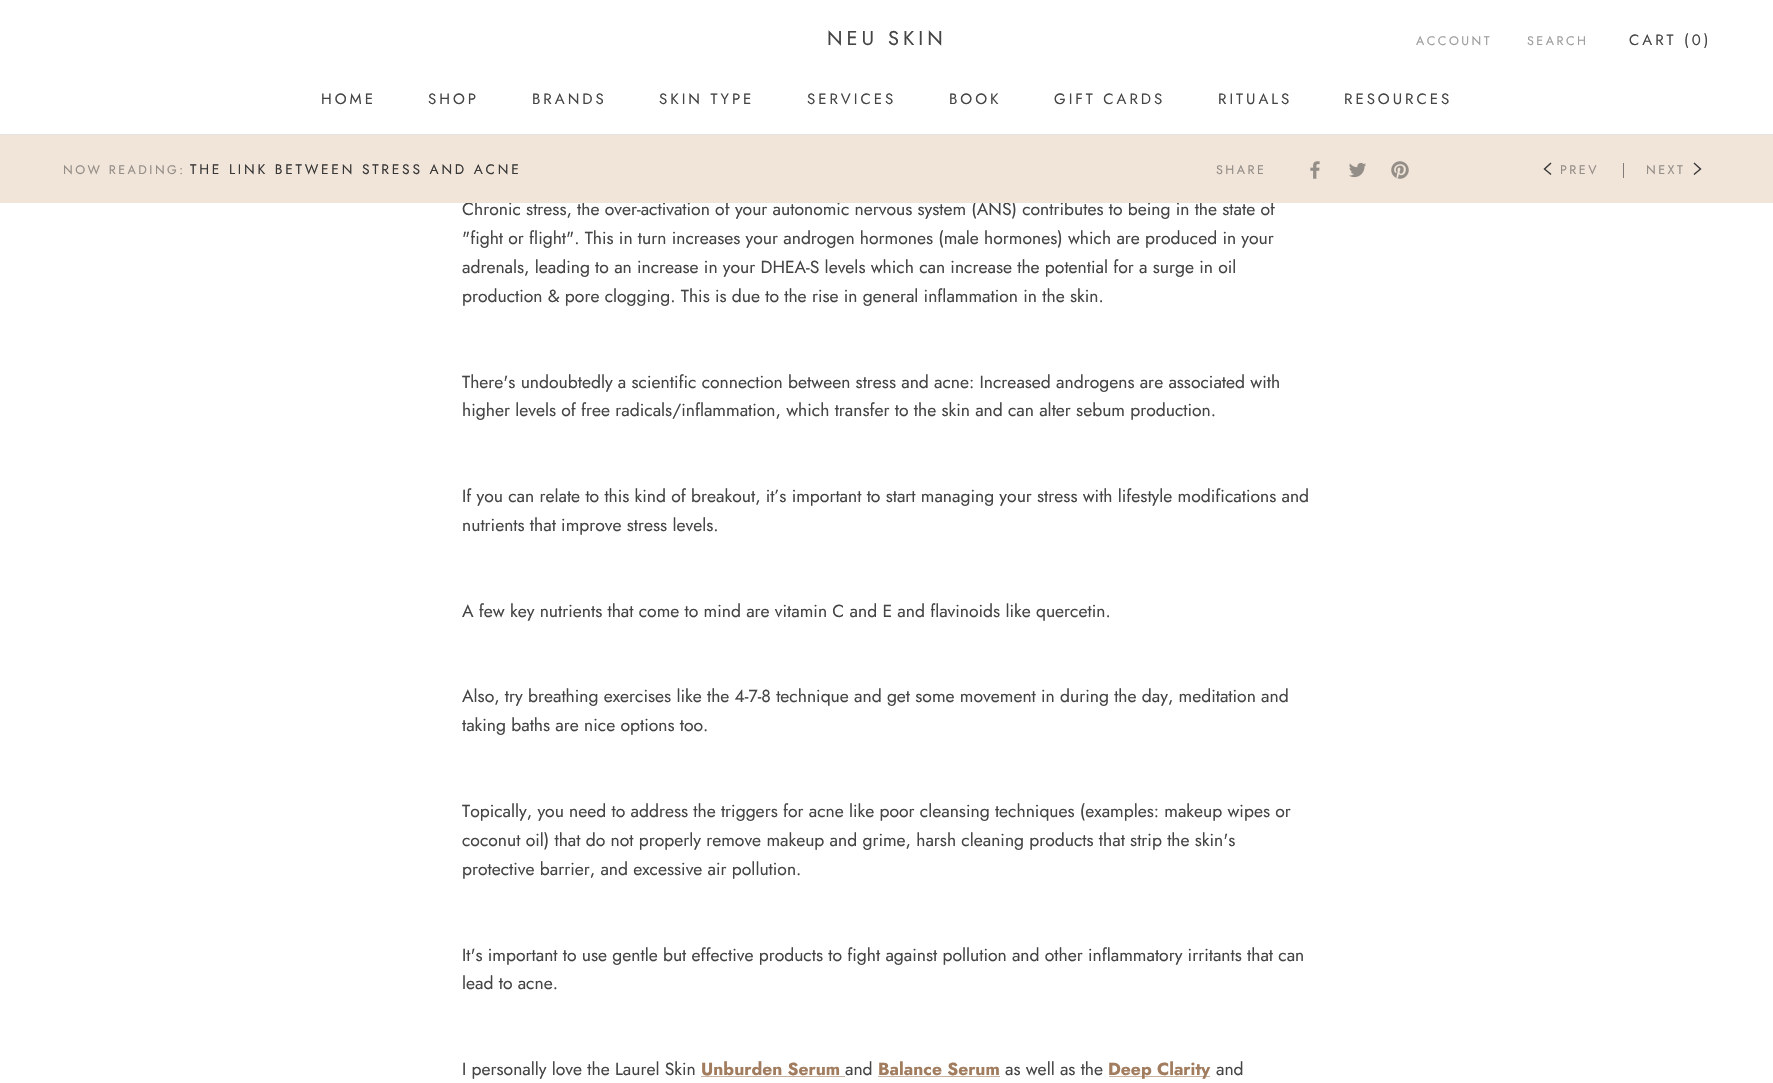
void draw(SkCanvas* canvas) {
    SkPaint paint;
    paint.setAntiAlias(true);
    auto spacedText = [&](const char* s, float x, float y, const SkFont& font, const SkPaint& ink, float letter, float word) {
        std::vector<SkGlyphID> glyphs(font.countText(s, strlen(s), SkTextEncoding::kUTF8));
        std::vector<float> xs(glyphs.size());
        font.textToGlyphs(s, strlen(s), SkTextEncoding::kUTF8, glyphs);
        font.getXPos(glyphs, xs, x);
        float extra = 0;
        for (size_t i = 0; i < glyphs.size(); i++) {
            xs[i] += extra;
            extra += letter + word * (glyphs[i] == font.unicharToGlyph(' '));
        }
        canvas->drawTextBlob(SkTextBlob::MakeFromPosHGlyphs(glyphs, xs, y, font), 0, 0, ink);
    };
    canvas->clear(0xFFFFFFFF);
    paint.setColor(0xFFE3E3E3);
    canvas->drawRect(SkRect::MakeXYWH(0, 134, 1773, 1), paint);
    SkFont font1(fontMgr->matchFamilyStyle("Jost", SkFontStyle::Normal()), 20);
    font1.setSubpixel(true);
    paint.setColor(0xFF454545);
    spacedText("NEU SKIN", 827, 45, font1, paint, 4, 0);
    SkFont font2(fontMgr->matchFamilyStyle("Jost", SkFontStyle::Normal()), 12.5f);
    font2.setSubpixel(true);
    paint.setColor(0xFF9D9D9D);
    spacedText("ACCOUNT", 1416, 45, font2, paint, 2.5f, 0);
    spacedText("SEARCH", 1527, 45, font2, paint, 2.5f, 0);
    SkFont font3(fontMgr->matchFamilyStyle("Jost", SkFontStyle::Normal()), 15);
    font3.setSubpixel(true);
    paint.setColor(0xFF454545);
    spacedText("CART (0)", 1629, 45, font3, paint, 3, 0);
    spacedText("HOME", 321, 104, font3, paint, 3, 0);
    spacedText("SHOP", 428, 104, font3, paint, 3, 0);
    spacedText("BRANDS", 532, 104, font3, paint, 3, 0);
    spacedText("SKIN TYPE", 659, 104, font3, paint, 3, 0);
    spacedText("SERVICES", 807, 104, font3, paint, 3, 0);
    spacedText("BOOK", 949, 104, font3, paint, 3, 0);
    spacedText("GIFT CARDS", 1054, 104, font3, paint, 3, 0);
    spacedText("RITUALS", 1218, 104, font3, paint, 3, 0);
    spacedText("RESOURCES", 1344, 104, font3, paint, 3, 0);
    SkFont font4(fontMgr->matchFamilyStyle("Jost", SkFontStyle::Normal()), 17.5f);
    font4.setSubpixel(true);
    canvas->drawString("Chronic stress, the over-activation of your autonomic nervous system (ANS) contributes to being in the state of", 462, 215, font4, paint);
    paint.setColor(0xFFF1E4D8);
    canvas->drawRect(SkRect::MakeXYWH(0, 135, 1773, 68), paint);
    paint.setColor(0xFF948E88);
    spacedText("NOW READING:", 63, 174, font2, paint, 2.5f, 0);
    SkFont font5(fontMgr->matchFamilyStyle("Jost", SkFontStyle::Normal()), 13.75f);
    font5.setSubpixel(true);
    paint.setColor(0xFF373737);
    spacedText("THE LINK BETWEEN STRESS AND ACNE", 190, 174, font5, paint, 2.75f, 0);
    paint.setColor(0xFF948E88);
    spacedText("SHARE", 1216, 174, font2, paint, 2.5f, 0);
    canvas->drawImageRect(SkImages::DeferredFromEncodedData(SkData::MakeFromFileName("img1.png")), SkRect::MakeXYWH(1310, 161, 10, 18), SkSamplingOptions());
    canvas->drawImageRect(SkImages::DeferredFromEncodedData(SkData::MakeFromFileName("img2.png")), SkRect::MakeXYWH(1349, 162, 17, 16), SkSamplingOptions());
    canvas->drawImageRect(SkImages::DeferredFromEncodedData(SkData::MakeFromFileName("img3.png")), SkRect::MakeXYWH(1391, 161, 18, 18), SkSamplingOptions());
    paint.setStyle(SkPaint::kStroke_Style);
    paint.setStrokeWidth(1.4f);
    paint.setStrokeCap(SkPaint::kSquare_Cap);
    paint.setColor(0xFF373737);
    canvas->drawPath(SkPathBuilder().moveTo(1550.5f, 163.5f).lineTo(1544.5f, 169).lineTo(1550.5f, 174).detach(), paint);
    paint.setStyle(SkPaint::kFill_Style);
    paint.setColor(0xFF948E88);
    spacedText("PREV", 1560, 174, font2, paint, 2.5f, 0);
    paint.setColor(0xFF817C77);
    canvas->drawRect(SkRect::MakeXYWH(1623, 163, 1, 15), paint);
    paint.setColor(0xFF948E88);
    spacedText("NEXT", 1646, 174, font2, paint, 2.5f, 0);
    paint.setStyle(SkPaint::kStroke_Style);
    paint.setColor(0xFF373737);
    canvas->drawPath(SkPathBuilder().moveTo(1694.5f, 163.5f).lineTo(1700.5f, 169).lineTo(1694.5f, 174).detach(), paint);
    paint.setStyle(SkPaint::kFill_Style);
    paint.setColor(0xFF454545);
    canvas->drawString("\"fight or flight\". This in turn increases your androgen hormones (male hormones) which are produced in your", 462, 244, font4, paint);
    canvas->drawString("adrenals, leading to an increase in your DHEA-S levels which can increase the potential for a surge in oil", 462, 273, font4, paint);
    canvas->drawString("production & pore clogging. This is due to the rise in general inflammation in the skin.", 462, 302, font4, paint);
    canvas->drawString("There's undoubtedly a scientific connection between stress and acne: Increased androgens are associated with", 462, 388, font4, paint);
    canvas->drawString("higher levels of free radicals/inflammation, which transfer to the skin and can alter sebum production.", 462, 416, font4, paint);
    canvas->drawString("If you can relate to this kind of breakout, it’s important to start managing your stress with lifestyle modifications and", 462, 502, font4, paint);
    canvas->drawString("nutrients that improve stress levels.", 462, 531, font4, paint);
    canvas->drawString("A few key nutrients that come to mind are vitamin C and E and flavinoids like quercetin.", 462, 617, font4, paint);
    canvas->drawString("Also, try breathing exercises like the 4-7-8 technique and get some movement in during the day, meditation and", 462, 702, font4, paint);
    canvas->drawString("taking baths are nice options too.", 462, 731, font4, paint);
    canvas->drawString("Topically, you need to address the triggers for acne like poor cleansing techniques (examples: makeup wipes or", 462, 817, font4, paint);
    canvas->drawString("coconut oil) that do not properly remove makeup and grime, harsh cleaning products that strip the skin's", 462, 846, font4, paint);
    canvas->drawString("protective barrier, and excessive air pollution.", 462, 875, font4, paint);
    canvas->drawString("It's important to use gentle but effective products to fight against pollution and other inflammatory irritants that can", 462, 961, font4, paint);
    canvas->drawString("lead to acne.", 462, 989, font4, paint);
    canvas->drawString("I personally love the Laurel Skin", 462, 1075, font4, paint);
    SkFont font6(fontMgr->matchFamilyStyle("Jost", SkFontStyle::Bold()), 17.5f);
    font6.setSubpixel(true);
    paint.setColor(0xFFA17C5E);
    canvas->drawString("Unburden Serum", 701, 1075, font6, paint);
    paint.setColor(0xFFC7B09E);
    canvas->drawRect(SkRect::MakeXYWH(701, 1076, 144, 1), paint);
    paint.setColor(0xFF454545);
    canvas->drawString("and", 845, 1075, font4, paint);
    paint.setColor(0xFFA17C5E);
    canvas->drawString("Balance Serum", 878, 1075, font6, paint);
    paint.setColor(0xFFC7B09E);
    canvas->drawRect(SkRect::MakeXYWH(878, 1076, 122, 1), paint);
    paint.setColor(0xFF454545);
    canvas->drawString("as well as the", 1005, 1075, font4, paint);
    paint.setColor(0xFFC7B09E);
    canvas->drawRect(SkRect::MakeXYWH(1109, 1076, 101, 1), paint);
    paint.setColor(0xFFA17C5E);
    canvas->drawString("Deep Clarity", 1108, 1075, font6, paint);
    paint.setColor(0xFF454545);
    canvas->drawString("and", 1216, 1075, font4, paint);
}
